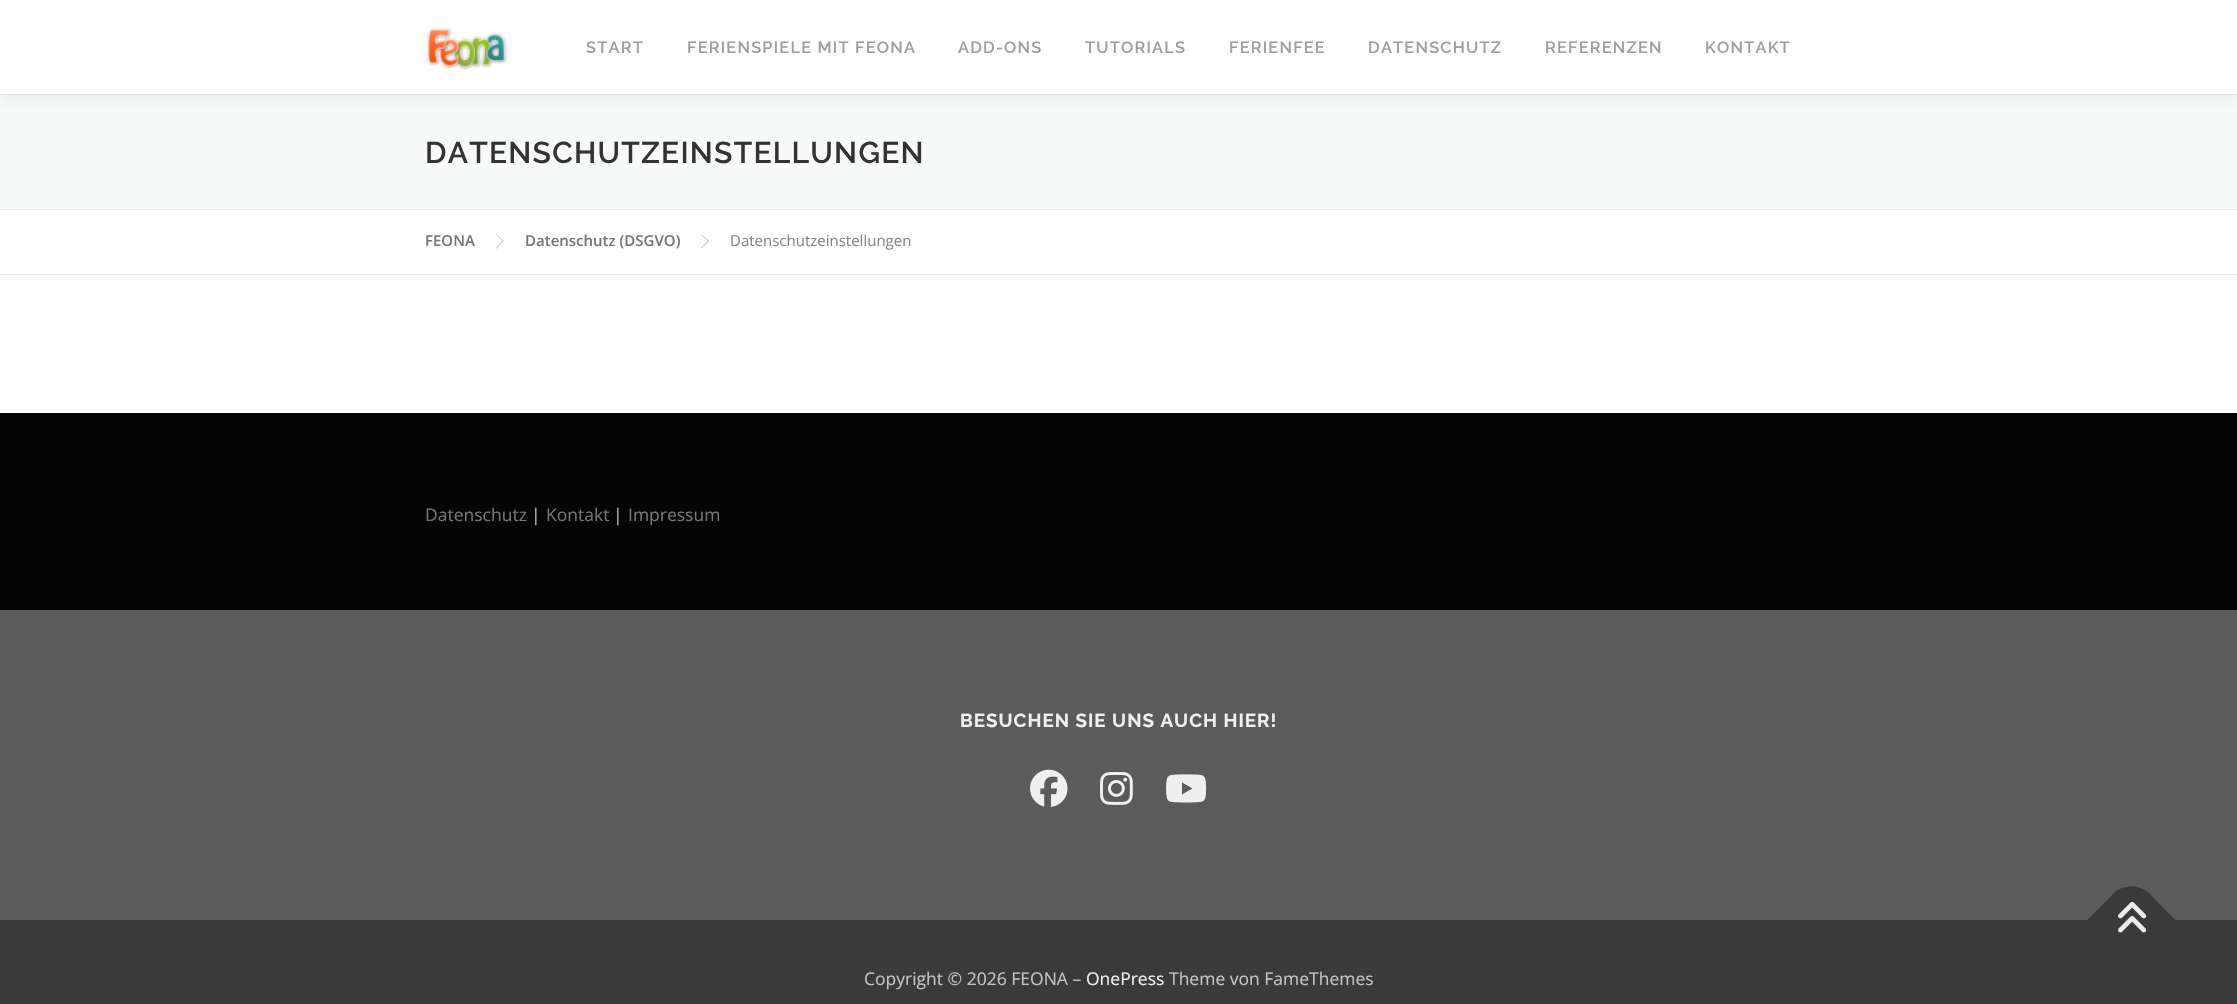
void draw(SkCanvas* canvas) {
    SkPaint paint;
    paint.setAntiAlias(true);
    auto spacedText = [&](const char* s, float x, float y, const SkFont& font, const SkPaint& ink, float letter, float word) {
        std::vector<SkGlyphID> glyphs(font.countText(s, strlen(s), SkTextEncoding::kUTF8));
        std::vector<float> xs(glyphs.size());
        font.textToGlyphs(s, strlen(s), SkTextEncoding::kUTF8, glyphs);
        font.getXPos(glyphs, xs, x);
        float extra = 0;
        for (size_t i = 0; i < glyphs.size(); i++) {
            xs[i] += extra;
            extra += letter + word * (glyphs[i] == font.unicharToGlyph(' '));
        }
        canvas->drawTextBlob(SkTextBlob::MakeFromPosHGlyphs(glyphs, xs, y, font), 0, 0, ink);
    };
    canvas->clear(0xFFFFFFFF);
    paint.setColor(0xFFF8F9F9);
    canvas->drawRect(SkRect::MakeXYWH(0, 95, 2237, 114), paint);
    paint.setColor(0xFFE9E9E9);
    canvas->drawRect(SkRect::MakeXYWH(0, 94, 2237, 1), paint);
    paint.setColor(0x0F323232);
    paint.setMaskFilter(SkMaskFilter::MakeBlur(kNormal_SkBlurStyle, 6));
    canvas->drawRect(SkRect::MakeXYWH(0, 6, 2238, 94), paint);
    paint.setMaskFilter(nullptr);
    paint.setColor(0xFFFFFFFF);
    canvas->drawRect(SkRect::MakeXYWH(0, 1, 2237, 93), paint);
    canvas->drawImageRect(SkImages::DeferredFromEncodedData(SkData::MakeFromFileName("img1.png")), SkRect::MakeXYWH(426, 27, 82, 43), SkSamplingOptions());
    SkFont font1(fontMgr->matchFamilyStyle("Raleway", SkFontStyle(600, SkFontStyle::kNormal_Width, SkFontStyle::kUpright_Slant)), 16.25f);
    font1.setSubpixel(true);
    paint.setColor(0xFF9E9E9E);
    spacedText("START", 586, 53, font1, paint, 1.25f, 0);
    spacedText("FERIENSPIELE MIT FEONA", 687, 53, font1, paint, 1.25f, 0);
    spacedText("ADD-ONS", 958, 53, font1, paint, 1.25f, 0);
    spacedText("TUTORIALS", 1085, 53, font1, paint, 1.25f, 0);
    spacedText("FERIENFEE", 1229, 53, font1, paint, 1.25f, 0);
    spacedText("DATENSCHUTZ", 1368, 53, font1, paint, 1.25f, 0);
    spacedText("REFERENZEN", 1545, 53, font1, paint, 1.25f, 0);
    spacedText("KONTAKT", 1705, 53, font1, paint, 1.25f, 0);
    paint.setColor(0xFFE9E9E9);
    canvas->drawRect(SkRect::MakeXYWH(0, 209, 2237, 1), paint);
    SkFont font2(fontMgr->matchFamilyStyle("Raleway", SkFontStyle(600, SkFontStyle::kNormal_Width, SkFontStyle::kUpright_Slant)), 30);
    font2.setSubpixel(true);
    paint.setColor(0xFF333333);
    spacedText("DATENSCHUTZEINSTELLUNGEN", 425, 163, font2, paint, 1.25f, 0);
    paint.setColor(0xFFE9E9E9);
    canvas->drawRect(SkRect::MakeXYWH(0, 274, 2237, 1), paint);
    SkFont font3(fontMgr->matchFamilyStyle("Open Sans", SkFontStyle(600, SkFontStyle::kNormal_Width, SkFontStyle::kUpright_Slant)), 15);
    font3.setSubpixel(true);
    paint.setColor(0xFF777777);
    canvas->drawString("FEONA", 425, 246, font3, paint);
    paint.setColor(0xFFCCCCCC);
    canvas->drawPath(SkPathBuilder().moveTo(496, 249).lineTo(496, 234).lineTo(504, 241).close().detach(), paint);
    paint.setColor(0xFFFFFFFF);
    canvas->drawPath(SkPathBuilder().moveTo(496, 247.5f).lineTo(496, 235).lineTo(502.5f, 241).close().detach(), paint);
    paint.setColor(0xFF777777);
    canvas->drawString("Datenschutz (DSGVO)", 525, 246, font3, paint);
    paint.setColor(0xFFCCCCCC);
    canvas->drawPath(SkPathBuilder().moveTo(701, 249).lineTo(701, 234).lineTo(709, 241).close().detach(), paint);
    paint.setColor(0xFFFFFFFF);
    canvas->drawPath(SkPathBuilder().moveTo(701, 247.5f).lineTo(701, 235).lineTo(707.5f, 241).close().detach(), paint);
    SkFont font4(fontMgr->matchFamilyStyle("Open Sans", SkFontStyle::Normal()), 15);
    font4.setSubpixel(true);
    paint.setColor(0xFF858585);
    canvas->drawString("Datenschutzeinstellungen", 730, 246, font4, paint);
    paint.setColor(0xFF5B5B5B);
    canvas->drawRect(SkRect::MakeXYWH(0, 610, 2237, 310), paint);
    paint.setColor(0xFF050505);
    canvas->drawRect(SkRect::MakeXYWH(0, 413, 2237, 197), paint);
    SkFont font5(fontMgr->matchFamilyStyle("Open Sans", SkFontStyle::Normal()), 17.5f);
    font5.setSubpixel(true);
    paint.setColor(0xFF777777);
    canvas->drawString("Datenschutz", 425, 521, font5, paint);
    paint.setColor(0xFFBBBBBB);
    canvas->drawString("|", 531, 521, font5, paint);
    paint.setColor(0xFF777777);
    canvas->drawString("Kontakt", 546, 521, font5, paint);
    paint.setColor(0xFFBBBBBB);
    canvas->drawString("|", 613, 521, font5, paint);
    paint.setColor(0xFF777777);
    canvas->drawString("Impressum", 628, 521, font5, paint);
    SkFont font6(fontMgr->matchFamilyStyle("Raleway", SkFontStyle::Bold()), 18.75f);
    font6.setSubpixel(true);
    paint.setColor(0xFFEFEFEF);
    spacedText("BESUCHEN SIE UNS AUCH HIER!", 960, 727, font6, paint, 1, 0);
    canvas->drawImageRect(SkImages::DeferredFromEncodedData(SkData::MakeFromFileName("img2.png")), SkRect::MakeXYWH(1030, 769, 38, 38), SkSamplingOptions());
    canvas->drawImageRect(SkImages::DeferredFromEncodedData(SkData::MakeFromFileName("img3.png")), SkRect::MakeXYWH(1100, 772, 33, 33), SkSamplingOptions());
    canvas->drawImageRect(SkImages::DeferredFromEncodedData(SkData::MakeFromFileName("img4.png")), SkRect::MakeXYWH(1166, 774, 41, 29), SkSamplingOptions());
    paint.setColor(0xFF3A3A3A);
    canvas->drawRect(SkRect::MakeXYWH(0, 920, 2237, 84), paint);
    canvas->drawPath(SkPathBuilder().moveTo(2087, 920).lineTo(2114, 893).cubicTo(2123, 884, 2139, 884, 2149, 893).lineTo(2175, 920).lineTo(2131, 964).close().detach(), paint);
    canvas->drawImageRect(SkImages::DeferredFromEncodedData(SkData::MakeFromFileName("img5.png")), SkRect::MakeXYWH(2118, 902, 29, 31), SkSamplingOptions());
    paint.setColor(0xFFC4C4C4);
    canvas->drawString("Copyright © 2026 FEONA –", 864, 985, font5, paint);
    paint.setColor(0xFFEFEFEF);
    canvas->drawString("OnePress", 1086, 985, font5, paint);
    paint.setColor(0xFFC4C4C4);
    canvas->drawString("Theme von FameThemes", 1169, 985, font5, paint);
}
